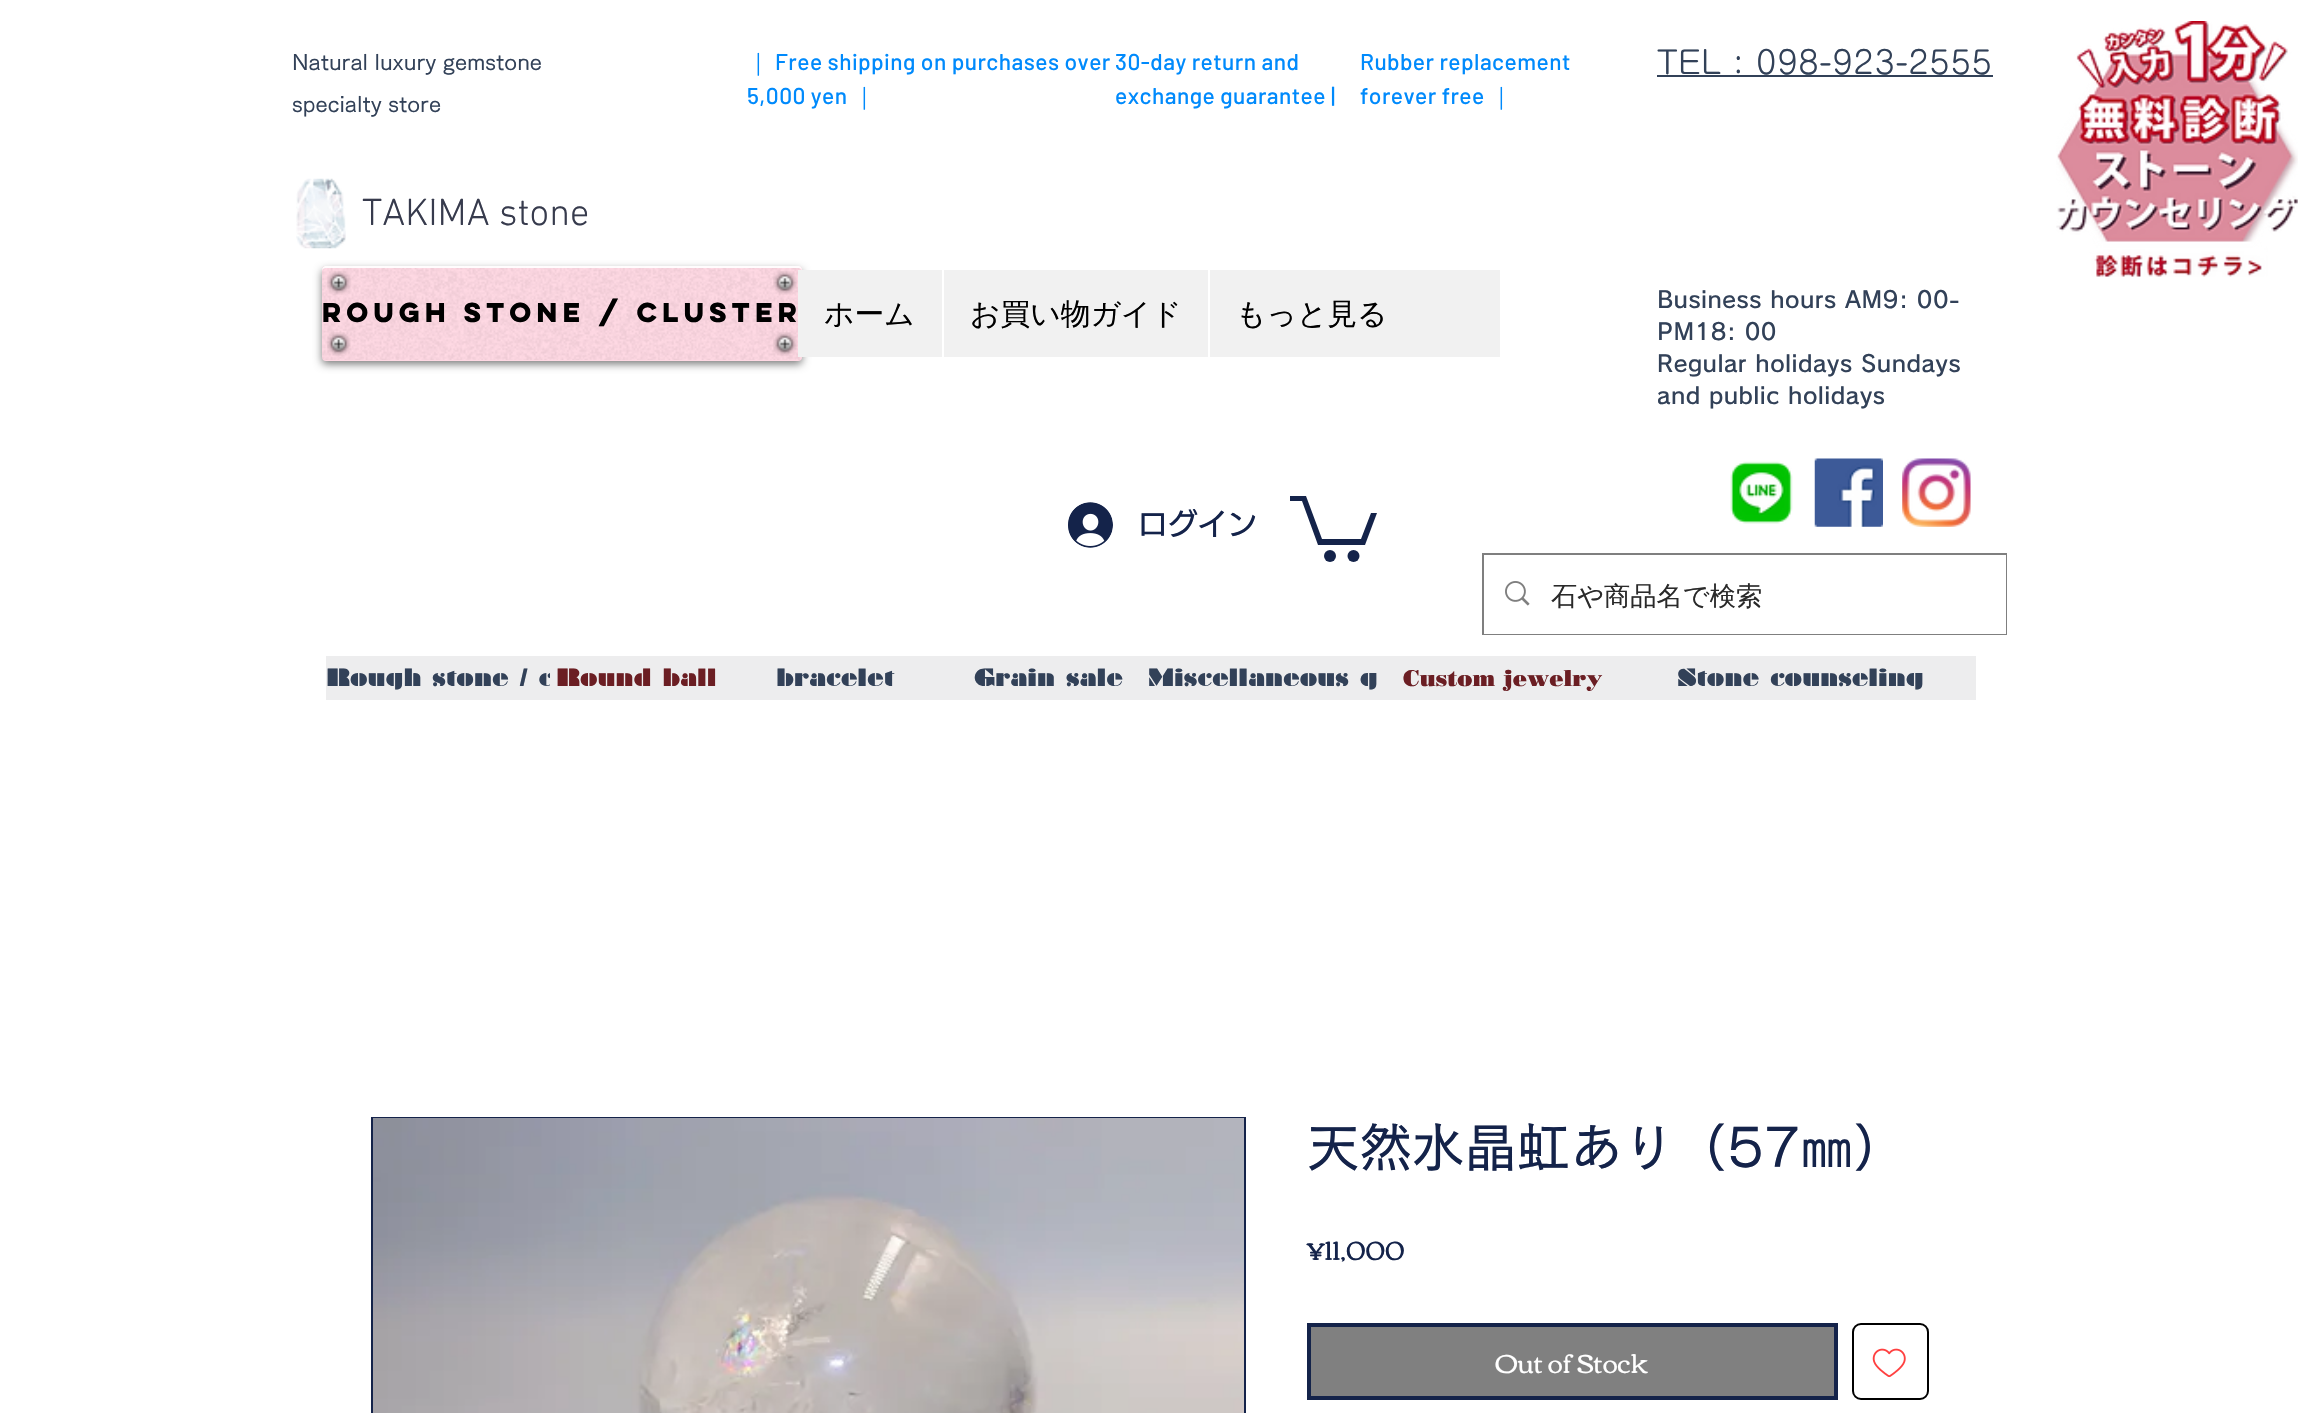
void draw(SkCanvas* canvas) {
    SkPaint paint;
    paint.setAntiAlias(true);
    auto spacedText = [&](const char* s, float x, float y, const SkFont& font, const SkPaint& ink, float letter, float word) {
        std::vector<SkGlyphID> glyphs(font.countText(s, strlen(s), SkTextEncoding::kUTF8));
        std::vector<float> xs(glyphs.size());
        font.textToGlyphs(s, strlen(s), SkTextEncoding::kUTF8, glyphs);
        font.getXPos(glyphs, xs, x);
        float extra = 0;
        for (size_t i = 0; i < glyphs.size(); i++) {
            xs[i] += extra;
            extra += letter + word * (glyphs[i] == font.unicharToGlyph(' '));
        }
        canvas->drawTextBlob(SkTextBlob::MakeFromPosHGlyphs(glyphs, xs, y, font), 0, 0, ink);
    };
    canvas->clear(0xFFFFFFFF);
    SkFont font1(fontMgr->matchFamilyStyle("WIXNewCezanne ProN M", SkFontStyle(500, SkFontStyle::kNormal_Width, SkFontStyle::kUpright_Slant)), 21);
    font1.setSubpixel(true);
    paint.setColor(0xFF324158);
    canvas->drawString("Natural luxury gemstone", 292, 70, font1, paint);
    canvas->drawString("specialty store", 292, 112, font1, paint);
    SkFont font2(fontMgr->matchFamilyStyle("WenQuanYi Zen Hei", SkFontStyle(500, SkFontStyle::kNormal_Width, SkFontStyle::kUpright_Slant)), 22.75f);
    font2.setSubpixel(true);
    paint.setColor(0xFF008AFC);
    spacedText("｜", 747, 70, font2, paint, 0.45f, 0);
    SkFont font3(fontMgr->matchFamilyStyle("Barlow", SkFontStyle(500, SkFontStyle::kNormal_Width, SkFontStyle::kUpright_Slant)), 22.75f);
    font3.setSubpixel(true);
    spacedText("Free shipping on purchases over", 775, 70, font3, paint, 0.45f, 0);
    spacedText("5,000 yen", 747, 104, font3, paint, 0.45f, 0);
    spacedText("｜", 853, 104, font2, paint, 0.45f, 0);
    spacedText("30-day return and", 1115, 70, font3, paint, 0.45f, 0);
    spacedText("exchange guarantee |", 1115, 104, font3, paint, 0.45f, 0);
    spacedText("Rubber replacement", 1360, 70, font3, paint, 0.45f, 0);
    spacedText("forever free", 1360, 104, font3, paint, 0.45f, 0);
    spacedText("｜", 1490, 104, font2, paint, 0.45f, 0);
    SkFont font4(fontMgr->matchFamilyStyle("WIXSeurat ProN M", SkFontStyle(500, SkFontStyle::kNormal_Width, SkFontStyle::kUpright_Slant)), 31.5f);
    font4.setSubpixel(true);
    paint.setColor(0xFF324158);
    spacedText("TEL : 098-923-2555", 1657, 74, font4, paint, 0.6f, 0);
    canvas->drawRect(SkRect::MakeXYWH(1657, 75, 336, 2), paint);
    canvas->drawImageRect(SkImages::DeferredFromEncodedData(SkData::MakeFromFileName("img1.png")), SkRect::MakeXYWH(2056, 21, 242, 256), SkSamplingOptions());
    canvas->drawImageRect(SkImages::DeferredFromEncodedData(SkData::MakeFromFileName("img2.png")), SkRect::MakeXYWH(296, 178, 50, 71), SkSamplingOptions());
    SkFont font5(fontMgr->matchFamilyStyle("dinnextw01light", SkFontStyle(300, SkFontStyle::kNormal_Width, SkFontStyle::kUpright_Slant)), 38.5f);
    font5.setSubpixel(true);
    paint.setColor(0xFF373B4D);
    canvas->drawString("TAKIMA stone", 362, 225, font5, paint);
    paint.setColor(0x87000000);
    paint.setMaskFilter(SkMaskFilter::MakeBlur(kNormal_SkBlurStyle, 4.5f));
    canvas->drawRoundRect(SkRect::MakeXYWH(322, 270, 480, 94), 4, 4, paint);
    paint.setMaskFilter(nullptr);
    paint.setColor(0xFFFFD9E4);
    canvas->drawRoundRect(SkRect::MakeXYWH(322, 266, 480, 95), 4, 4, paint);
    canvas->drawImageRect(SkImages::DeferredFromEncodedData(SkData::MakeFromFileName("img3.png")), SkRect::MakeXYWH(322, 266, 479, 94), SkSamplingOptions());
    paint.setColor(0xEBFFFFFF);
    canvas->drawPath(SkPathBuilder().moveTo(326, 268).lineTo(798, 268).cubicTo(800, 268, 802, 269, 802, 271).cubicTo(802, 268, 801, 266, 798, 266).lineTo(326, 266).cubicTo(323, 266, 322, 268, 322, 271).cubicTo(322, 269, 324, 268, 326, 268).close().detach(), paint);
    canvas->drawImageRect(SkImages::DeferredFromEncodedData(SkData::MakeFromFileName("img4.png")), SkRect::MakeXYWH(327, 271, 24, 24), SkSamplingOptions());
    canvas->drawImageRect(SkImages::DeferredFromEncodedData(SkData::MakeFromFileName("img5.png")), SkRect::MakeXYWH(773, 271, 24, 24), SkSamplingOptions());
    SkFont font6(fontMgr->matchFamilyStyle("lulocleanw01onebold", SkFontStyle::Bold()), 24.5f);
    font6.setSubpixel(true);
    paint.setColor(0xFF000000);
    canvas->drawString("Rough stone / cluster", 322, 322, font6, paint);
    canvas->drawImageRect(SkImages::DeferredFromEncodedData(SkData::MakeFromFileName("img6.png")), SkRect::MakeXYWH(327, 332, 24, 24), SkSamplingOptions());
    canvas->drawImageRect(SkImages::DeferredFromEncodedData(SkData::MakeFromFileName("img7.png")), SkRect::MakeXYWH(773, 332, 24, 24), SkSamplingOptions());
    paint.setColor(0xFFF1F1F1);
    canvas->drawRect(SkRect::MakeXYWH(798, 270, 702, 87), paint);
    SkFont font7(fontMgr->matchFamilyStyle("WenQuanYi Zen Hei", SkFontStyle(500, SkFontStyle::kNormal_Width, SkFontStyle::kUpright_Slant)), 29.75f);
    font7.setSubpixel(true);
    paint.setColor(0xFF000000);
    canvas->drawString("ホーム", 824, 324, font7, paint);
    paint.setColor(0xFFFFFFFF);
    canvas->drawRect(SkRect::MakeXYWH(942, 270, 2, 87), paint);
    paint.setColor(0xFF000000);
    canvas->drawString("お買い物ガイド", 970, 324, font7, paint);
    paint.setColor(0xFFFFFFFF);
    canvas->drawRect(SkRect::MakeXYWH(1208, 270, 2, 87), paint);
    paint.setColor(0xFF000000);
    canvas->drawString("もっと見る", 1236, 324, font7, paint);
    SkFont font8(fontMgr->matchFamilyStyle("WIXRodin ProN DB", SkFontStyle(600, SkFontStyle::kNormal_Width, SkFontStyle::kUpright_Slant)), 22.75f);
    font8.setSubpixel(true);
    paint.setColor(0xFF324158);
    spacedText("Business hours AM9: 00-", 1657, 308, font8, paint, 0.45f, 0);
    spacedText("PM18: 00", 1657, 340, font8, paint, 0.45f, 0);
    spacedText("Regular holidays Sundays", 1657, 372, font8, paint, 0.45f, 0);
    spacedText("and public holidays", 1657, 404, font8, paint, 0.45f, 0);
    canvas->drawImageRect(SkImages::DeferredFromEncodedData(SkData::MakeFromFileName("img8.png")), SkRect::MakeXYWH(1068, 502, 45, 46), SkSamplingOptions());
    SkFont font9(fontMgr->matchFamilyStyle("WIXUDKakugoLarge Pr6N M", SkFontStyle(500, SkFontStyle::kNormal_Width, SkFontStyle::kUpright_Slant)), 29.75f);
    font9.setSubpixel(true);
    paint.setColor(0xFF14234A);
    canvas->drawString("ログイン", 1138, 535, font9, paint);
    canvas->drawPath(SkPathBuilder().moveTo(1377, 513).lineTo(1365, 545).lineTo(1318, 545).lineTo(1302, 501).lineTo(1290, 501).lineTo(1290, 496).lineTo(1306, 496).lineTo(1322, 539).lineTo(1361, 539).lineTo(1371, 513).detach(), paint);
    canvas->drawCircle(1353.5f, 556, 6, paint);
    canvas->drawCircle(1330, 556, 6, paint);
    canvas->drawImageRect(SkImages::DeferredFromEncodedData(SkData::MakeFromFileName("img9.png")), SkRect::MakeXYWH(1730, 461, 63, 63), SkSamplingOptions());
    canvas->drawImageRect(SkImages::DeferredFromEncodedData(SkData::MakeFromFileName("img10.png")), SkRect::MakeXYWH(1814, 458, 69, 69), SkSamplingOptions());
    canvas->drawImageRect(SkImages::DeferredFromEncodedData(SkData::MakeFromFileName("img11.png")), SkRect::MakeXYWH(1902, 458, 69, 69), SkSamplingOptions());
    paint.setStyle(SkPaint::kStroke_Style);
    paint.setStrokeWidth(2);
    paint.setColor(0xFF7F7F7F);
    canvas->drawRect(SkRect::MakeXYWH(1483, 554, 523, 80), paint);
    paint.setStyle(SkPaint::kFill_Style);
    paint.setColor(0xFFFFFFFF);
    canvas->drawRect(SkRect::MakeXYWH(1484, 555, 522, 79), paint);
    canvas->drawImageRect(SkImages::DeferredFromEncodedData(SkData::MakeFromFileName("img12.png")), SkRect::MakeXYWH(1505, 581, 25, 25), SkSamplingOptions());
    SkFont font10(fontMgr->matchFamilyStyle("WenQuanYi Zen Hei", SkFontStyle(500, SkFontStyle::kNormal_Width, SkFontStyle::kUpright_Slant)), 26.25f);
    font10.setSubpixel(true);
    paint.setColor(0xFF2A2A2A);
    canvas->drawString("石や商品名で検索", 1551, 605, font10, paint);
    paint.setColor(0xFFEDEDEE);
    canvas->drawRect(SkRect::MakeXYWH(326, 656, 224, 44), paint);
    SkFont font11(fontMgr->matchFamilyStyle("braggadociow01", SkFontStyle::Normal()), 22.75f);
    font11.setSubpixel(true);
    paint.setColor(0xFF324158);
    canvas->drawString("Rough stone / c", 326, 686, font11, paint);
    paint.setColor(0xFFEDEDEE);
    canvas->drawRect(SkRect::MakeXYWH(550, 656, 1426, 44), paint);
    paint.setColor(0xFF6B1E23);
    canvas->drawString("Round ball", 556, 686, font11, paint);
    paint.setColor(0xFF324158);
    canvas->drawString("bracelet", 776, 686, font11, paint);
    canvas->drawString("Grain sale", 974, 686, font11, paint);
    canvas->drawString("Miscellaneous g", 1148, 686, font11, paint);
    SkFont font12(fontMgr->matchFamilyStyle("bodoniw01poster", SkFontStyle(900, SkFontStyle::kNormal_Width, SkFontStyle::kUpright_Slant)), 22.75f);
    font12.setSubpixel(true);
    paint.setColor(0xFF6B1E23);
    canvas->drawString("Custom jewelry", 1403, 686, font12, paint);
    paint.setColor(0xFF324158);
    canvas->drawString("Stone counseling", 1677, 686, font11, paint);
    paint.setStyle(SkPaint::kStroke_Style);
    paint.setColor(0xFF14234A);
    canvas->drawRect(SkRect::MakeXYWH(372, 1118, 873, 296), paint);
    canvas->drawImageRect(SkImages::DeferredFromEncodedData(SkData::MakeFromFileName("img13.png")), SkRect::MakeXYWH(373, 1118, 871, 295), SkSamplingOptions());
    SkFont font13(fontMgr->matchFamilyStyle("WIXNewCezanne ProN M", SkFontStyle(500, SkFontStyle::kNormal_Width, SkFontStyle::kUpright_Slant)), 52.5f);
    font13.setSubpixel(true);
    paint.setStyle(SkPaint::kFill_Style);
    canvas->drawString("天然水晶虹あり（57㎜）", 1307, 1167, font13, paint);
    SkFont font14(fontMgr->matchFamilyStyle("Corben", SkFontStyle::Normal()), 26.25f);
    font14.setSubpixel(true);
    canvas->drawString("¥11,000", 1307, 1260, font14, paint);
    paint.setColor(0xFF808080);
    canvas->drawRect(SkRect::MakeXYWH(1309, 1325, 527, 73), paint);
    paint.setStyle(SkPaint::kStroke_Style);
    paint.setStrokeWidth(4);
    paint.setColor(0xFF14234A);
    canvas->drawRect(SkRect::MakeXYWH(1309, 1325, 527, 73), paint);
    paint.setStyle(SkPaint::kFill_Style);
    paint.setColor(0xFFFFFFFF);
    canvas->drawString("Out of Stock", 1495, 1373, font14, paint);
    paint.setStyle(SkPaint::kStroke_Style);
    paint.setStrokeWidth(2);
    paint.setColor(0xFF000000);
    canvas->drawRoundRect(SkRect::MakeXYWH(1853, 1324, 75, 75), 8, 8, paint);
    canvas->drawImageRect(SkImages::DeferredFromEncodedData(SkData::MakeFromFileName("img14.png")), SkRect::MakeXYWH(1872, 1348, 34, 30), SkSamplingOptions());
}
